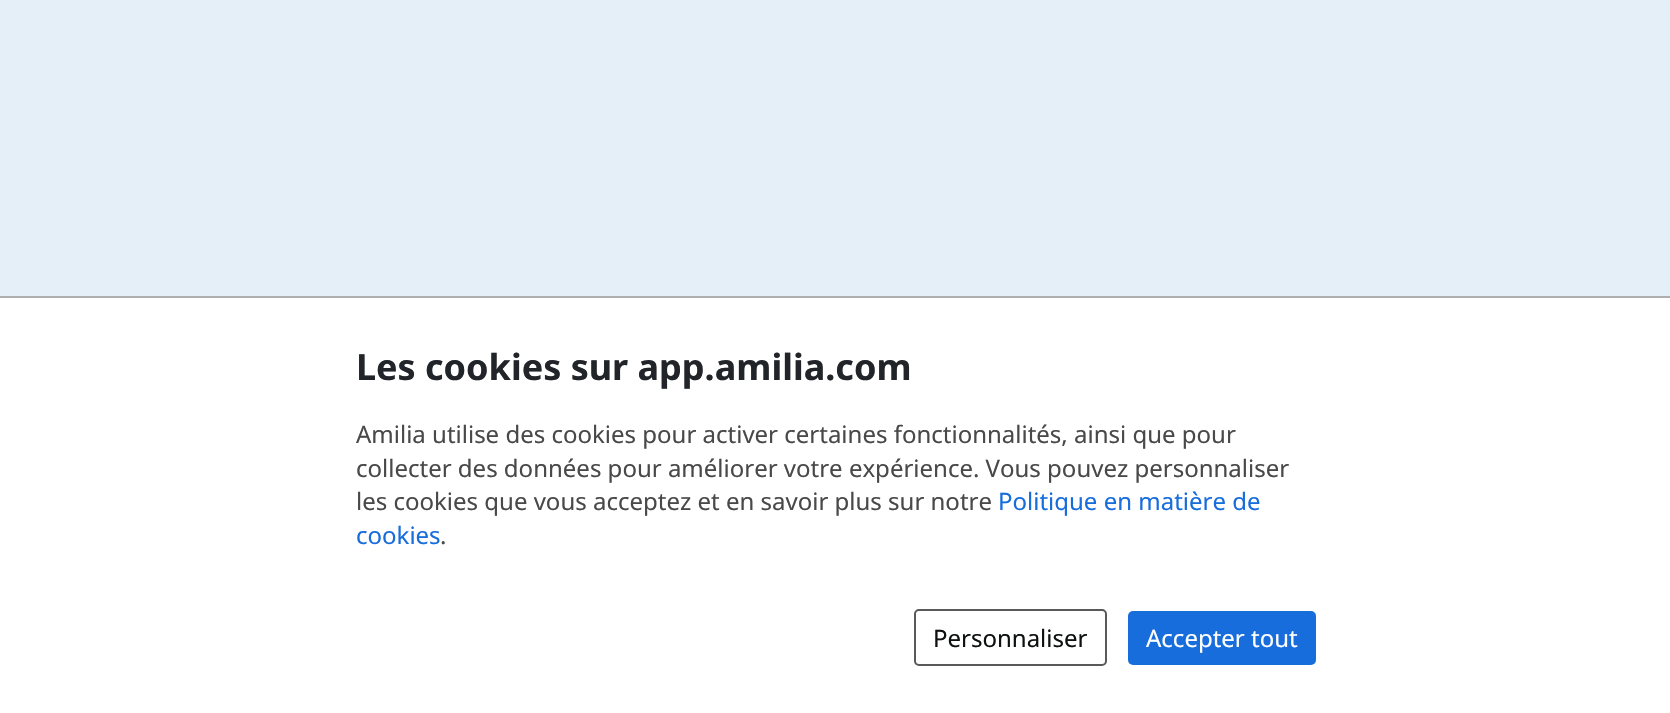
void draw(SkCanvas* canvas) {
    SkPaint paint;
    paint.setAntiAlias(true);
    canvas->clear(0xFFE4EFF7);
    paint.setColor(0xFFFFFFFF);
    canvas->drawRect(SkRect::MakeXYWH(0, 298, 1670, 415), paint);
    paint.setColor(0xFFAEAEAE);
    canvas->drawRect(SkRect::MakeXYWH(0, 296, 1670, 2), paint);
    SkFont font1(fontMgr->matchFamilyStyle("Noto Sans", SkFontStyle::Bold()), 36);
    font1.setSubpixel(true);
    paint.setColor(0xFF212529);
    canvas->drawString("Les cookies sur app.amilia.com", 356, 380, font1, paint);
    SkFont font2(fontMgr->matchFamilyStyle("Noto Sans", SkFontStyle::Normal()), 24);
    font2.setSubpixel(true);
    paint.setColor(0xFF494949);
    canvas->drawString("Amilia utilise des cookies pour activer certaines fonctionnalités, ainsi que pour", 356, 443, font2, paint);
    canvas->drawString("collecter des données pour améliorer votre expérience. Vous pouvez personnaliser", 356, 477, font2, paint);
    canvas->drawString("les cookies que vous acceptez et en savoir plus sur notre", 356, 510, font2, paint);
    paint.setColor(0xFF186DDC);
    canvas->drawString("Politique en matière de", 998, 510, font2, paint);
    canvas->drawString("cookies", 356, 544, font2, paint);
    paint.setColor(0xFF494949);
    canvas->drawString(".", 440, 544, font2, paint);
    paint.setStyle(SkPaint::kStroke_Style);
    paint.setStrokeWidth(2);
    paint.setColor(0xFF595959);
    canvas->drawRoundRect(SkRect::MakeXYWH(915, 610, 191, 55), 4, 4, paint);
    paint.setStyle(SkPaint::kFill_Style);
    paint.setColor(0xFF0F1111);
    canvas->drawString("Personnaliser", 933, 647, font2, paint);
    paint.setColor(0xFF186DDC);
    canvas->drawRoundRect(SkRect::MakeXYWH(1128, 611, 188, 54), 5, 5, paint);
    paint.setColor(0xFFFFFFFF);
    canvas->drawString("Accepter tout", 1146, 647, font2, paint);
}
